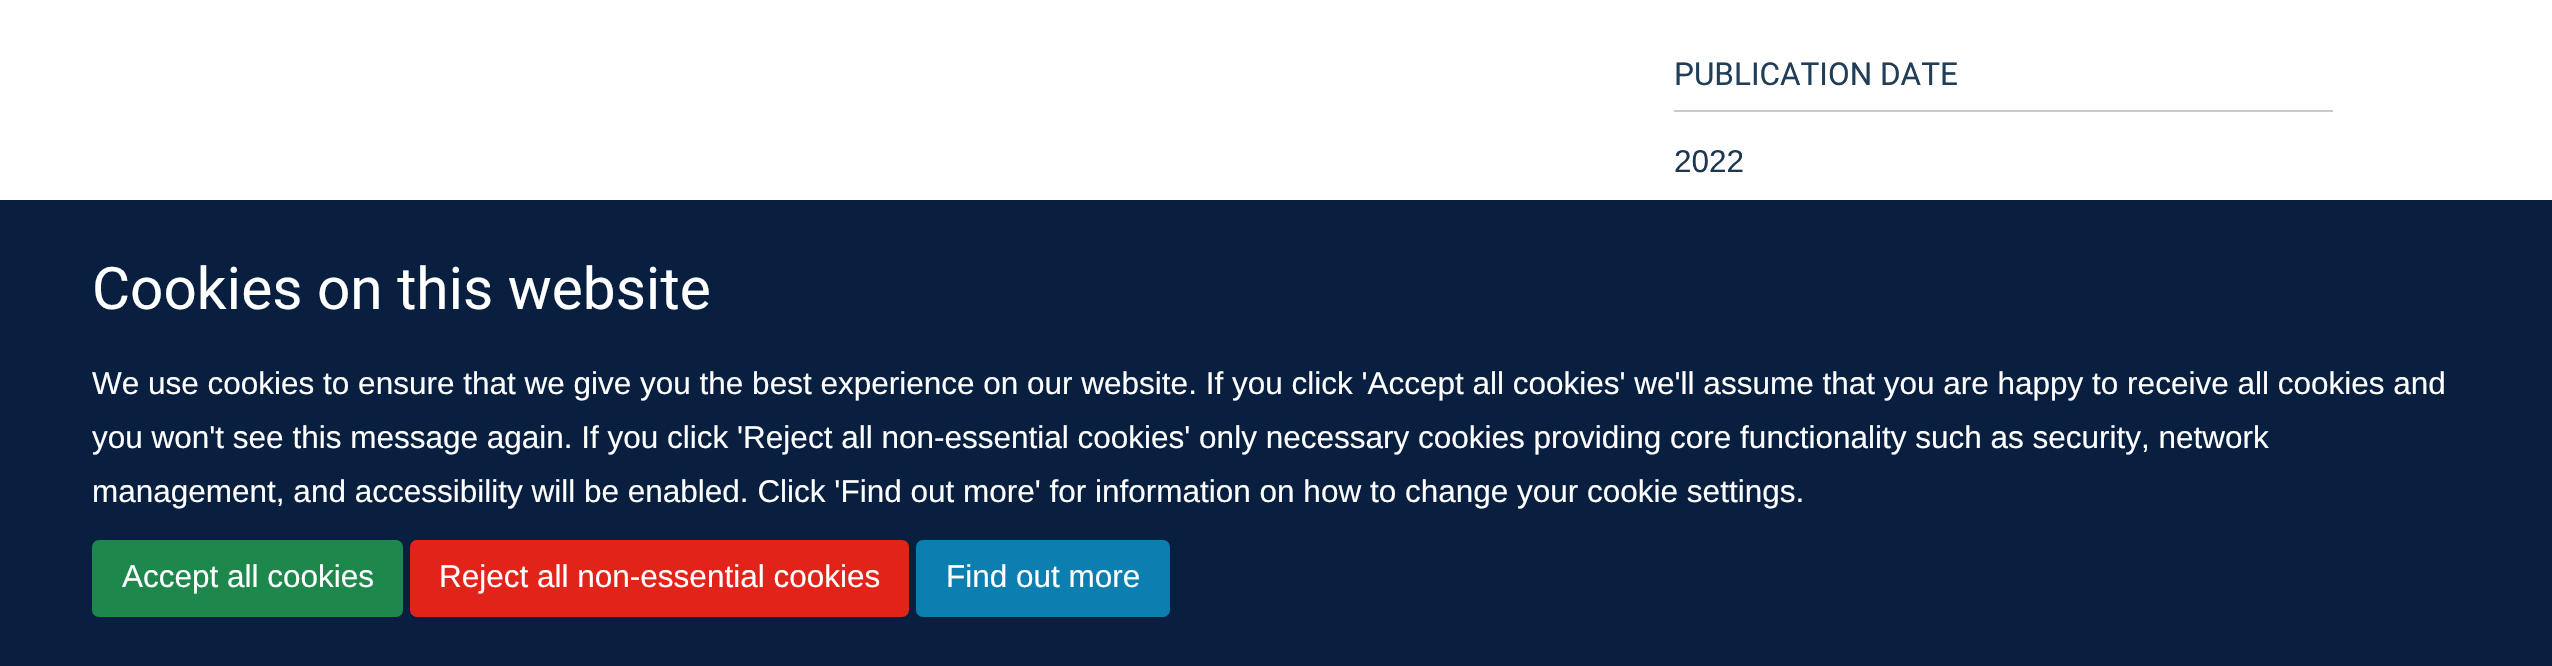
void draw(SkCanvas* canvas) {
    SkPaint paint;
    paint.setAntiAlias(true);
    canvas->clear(0xFFFFFFFF);
    paint.setColor(0xFFC6CACF);
    canvas->drawRect(SkRect::MakeXYWH(1674, 110, 659, 2), paint);
    SkFont font1(fontMgr->matchFamilyStyle("Heebo", SkFontStyle::Normal()), 31.5f);
    font1.setSubpixel(true);
    paint.setColor(0xFF203E58);
    canvas->drawString("PUBLICATION DATE", 1674, 85, font1, paint);
    SkFont font2(fontMgr->matchFamilyStyle("Liberation Sans", SkFontStyle::Normal()), 31.5f);
    font2.setSubpixel(true);
    paint.setColor(0xFF1D3850);
    canvas->drawString("2022", 1674, 172, font2, paint);
    paint.setColor(0xFF091F40);
    canvas->drawRect(SkRect::MakeXYWH(0, 200, 2552, 466), paint);
    SkFont font3(fontMgr->matchFamilyStyle("Heebo", SkFontStyle::Normal()), 58.5f);
    font3.setSubpixel(true);
    paint.setColor(0xFFFFFFFF);
    canvas->drawString("Cookies on this website", 92, 309, font3, paint);
    canvas->drawString("We use cookies to ensure that we give you the best experience on our website. If you click 'Accept all cookies' we'll assume that you are happy to receive all cookies and", 92, 394, font2, paint);
    canvas->drawString("you won't see this message again. If you click 'Reject all non-essential cookies' only necessary cookies providing core functionality such as security, network", 92, 448, font2, paint);
    canvas->drawString("management, and accessibility will be enabled. Click 'Find out more' for information on how to change your cookie settings.", 92, 502, font2, paint);
    paint.setColor(0xFF1E874B);
    canvas->drawRoundRect(SkRect::MakeXYWH(93, 541, 309, 75), 6, 6, paint);
    paint.setStyle(SkPaint::kStroke_Style);
    paint.setStrokeWidth(2);
    canvas->drawRoundRect(SkRect::MakeXYWH(93, 541, 309, 75), 6, 6, paint);
    paint.setStyle(SkPaint::kFill_Style);
    paint.setColor(0xFFFFFFFF);
    canvas->drawString("Accept all cookies", 122, 587, font2, paint);
    paint.setColor(0xFFE2231A);
    canvas->drawRoundRect(SkRect::MakeXYWH(411, 541, 497, 75), 6, 6, paint);
    paint.setStyle(SkPaint::kStroke_Style);
    canvas->drawRoundRect(SkRect::MakeXYWH(411, 541, 497, 75), 6, 6, paint);
    paint.setStyle(SkPaint::kFill_Style);
    paint.setColor(0xFFFFFFFF);
    canvas->drawString("Reject all non-essential cookies", 439, 587, font2, paint);
    paint.setColor(0xFF0D7EB0);
    canvas->drawRoundRect(SkRect::MakeXYWH(917, 541, 252, 75), 6, 6, paint);
    paint.setStyle(SkPaint::kStroke_Style);
    canvas->drawRoundRect(SkRect::MakeXYWH(917, 541, 252, 75), 6, 6, paint);
    paint.setStyle(SkPaint::kFill_Style);
    paint.setColor(0xFFFFFFFF);
    canvas->drawString("Find out more", 946, 587, font2, paint);
}
